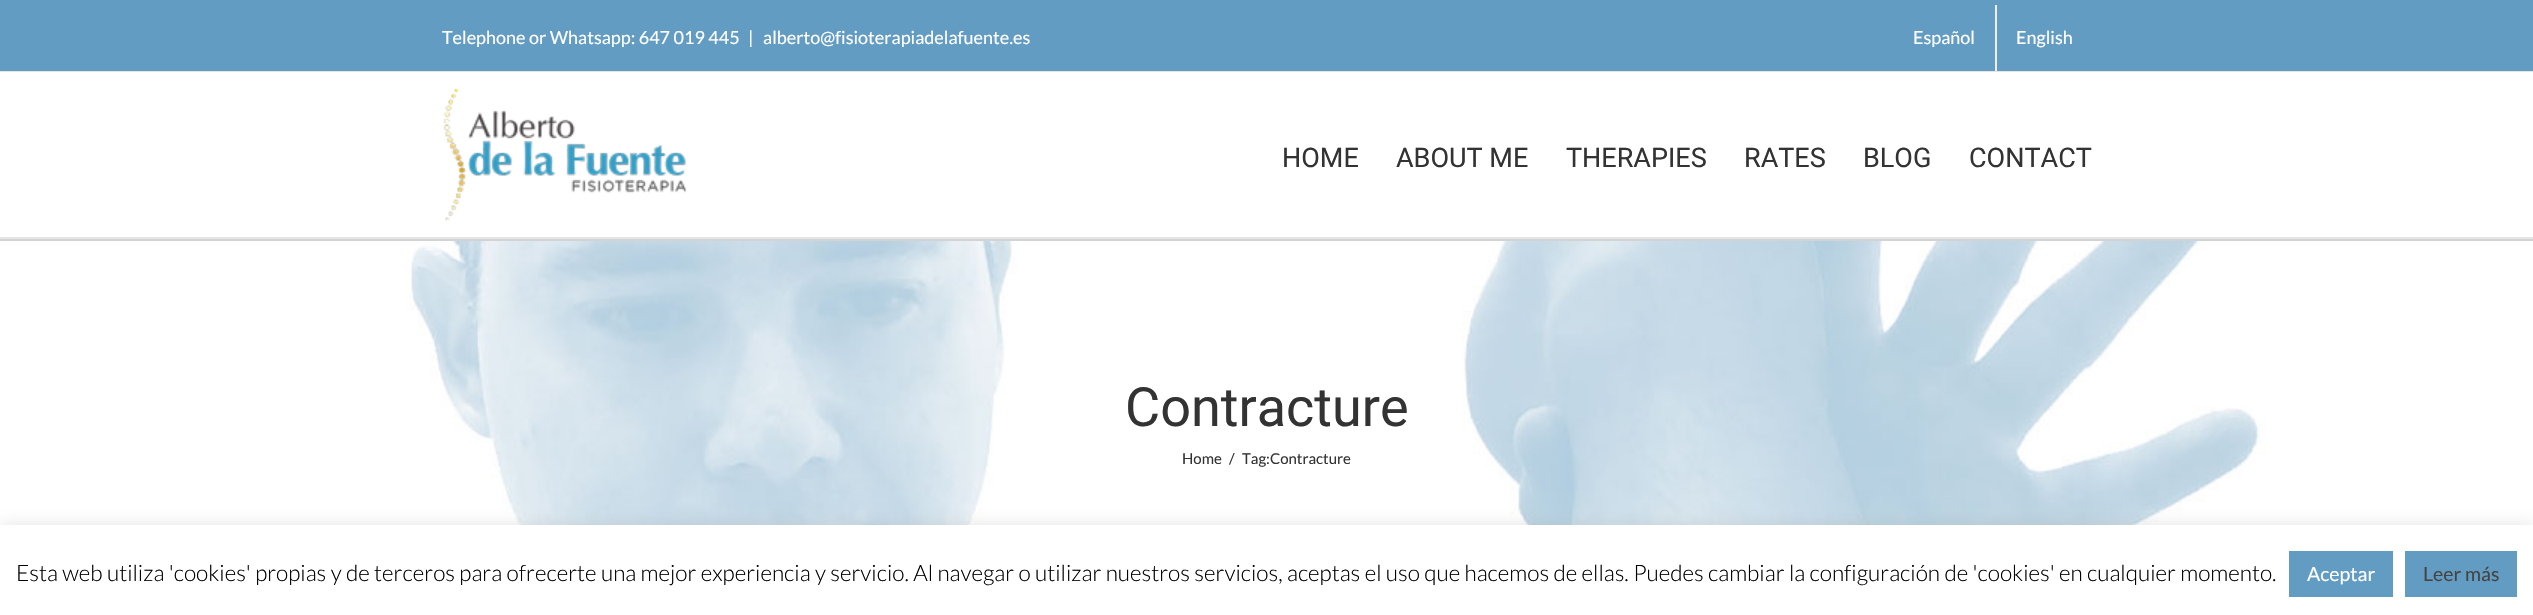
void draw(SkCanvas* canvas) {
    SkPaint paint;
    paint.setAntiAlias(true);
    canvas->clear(0xFFFFFFFF);
    paint.setColor(0xFF629CC2);
    canvas->drawRect(SkRect::MakeXYWH(0, 0, 2533, 71), paint);
    paint.setColor(0xFFE5E5E5);
    canvas->drawRect(SkRect::MakeXYWH(0, 71, 2533, 1), paint);
    SkFont font1(fontMgr->matchFamilyStyle("Lato", SkFontStyle::Normal()), 18);
    font1.setSubpixel(true);
    paint.setColor(0xFFFFFFFF);
    canvas->drawString("Telephone or Whatsapp: 647 019 445", 442, 44, font1, paint);
    canvas->drawString("|", 748, 44, font1, paint);
    canvas->drawString("alberto@fisioterapiadelafuente.es", 763, 44, font1, paint);
    canvas->drawString("Español", 1913, 44, font1, paint);
    paint.setColor(0xFFEFEFEF);
    canvas->drawRect(SkRect::MakeXYWH(1995, 5, 2, 66), paint);
    paint.setColor(0xFFFFFFFF);
    canvas->drawString("English", 2016, 44, font1, paint);
    paint.setColor(0xFFE5E5E5);
    canvas->drawRect(SkRect::MakeXYWH(0, 237, 2533, 2), paint);
    canvas->drawImageRect(SkImages::DeferredFromEncodedData(SkData::MakeFromFileName("img1.png")), SkRect::MakeXYWH(443, 88, 244, 133), SkSamplingOptions());
    SkFont font2(fontMgr->matchFamilyStyle("Roboto", SkFontStyle::Normal()), 27);
    font2.setSubpixel(true);
    paint.setColor(0xFF333333);
    canvas->drawString("HOME", 1282, 167, font2, paint);
    canvas->drawString("ABOUT ME", 1396, 167, font2, paint);
    canvas->drawString("THERAPIES", 1566, 167, font2, paint);
    canvas->drawString("RATES", 1744, 167, font2, paint);
    canvas->drawString("BLOG", 1863, 167, font2, paint);
    canvas->drawString("CONTACT", 1969, 167, font2, paint);
    canvas->drawImageRect(SkImages::DeferredFromEncodedData(SkData::MakeFromFileName("img2.png")), SkRect::MakeXYWH(0, 241, 2533, 284), SkSamplingOptions());
    paint.setColor(0xFFD2D3D4);
    canvas->drawRect(SkRect::MakeXYWH(0, 239, 2533, 2), paint);
    SkFont font3(fontMgr->matchFamilyStyle("Roboto", SkFontStyle::Normal()), 54);
    font3.setSubpixel(true);
    paint.setColor(0xFF333333);
    canvas->drawString("Contracture", 1125, 426, font3, paint);
    SkFont font4(fontMgr->matchFamilyStyle("Lato", SkFontStyle::Normal()), 15);
    font4.setSubpixel(true);
    canvas->drawString("Home", 1182, 464, font4, paint);
    canvas->drawString("/", 1229, 464, font4, paint);
    canvas->drawString("Tag:Contracture", 1242, 464, font4, paint);
    paint.setColor(0x4DACABAB);
    paint.setMaskFilter(SkMaskFilter::MakeBlur(kNormal_SkBlurStyle, 7.5f));
    canvas->drawRect(SkRect::MakeXYWH(0, 524, 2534, 90), paint);
    paint.setMaskFilter(nullptr);
    paint.setColor(0xFFFFFFFF);
    canvas->drawRect(SkRect::MakeXYWH(0, 525, 2533, 90), paint);
    SkFont font5(fontMgr->matchFamilyStyle("Lato", SkFontStyle(300, SkFontStyle::kNormal_Width, SkFontStyle::kUpright_Slant)), 22.5f);
    font5.setSubpixel(true);
    paint.setColor(0xFF000000);
    canvas->drawString("Esta web utiliza 'cookies' propias y de terceros para ofrecerte una mejor experiencia y servicio. Al navegar o utilizar nuestros servicios, aceptas el uso que hacemos de ellas. Puedes cambiar la configuración de 'cookies' en cualquier momento.", 16, 581, font5, paint);
    paint.setColor(0xFF629CC2);
    canvas->drawRect(SkRect::MakeXYWH(2289, 551, 104, 46), paint);
    SkFont font6(fontMgr->matchFamilyStyle("Lato", SkFontStyle::Normal()), 19.5f);
    font6.setSubpixel(true);
    paint.setColor(0xFFFFFFFF);
    canvas->drawString("Aceptar", 2307, 581, font6, paint);
    paint.setColor(0xFF629CC2);
    canvas->drawRect(SkRect::MakeXYWH(2405, 551, 112, 46), paint);
    paint.setColor(0xFF444444);
    canvas->drawString("Leer más", 2423, 581, font6, paint);
}
